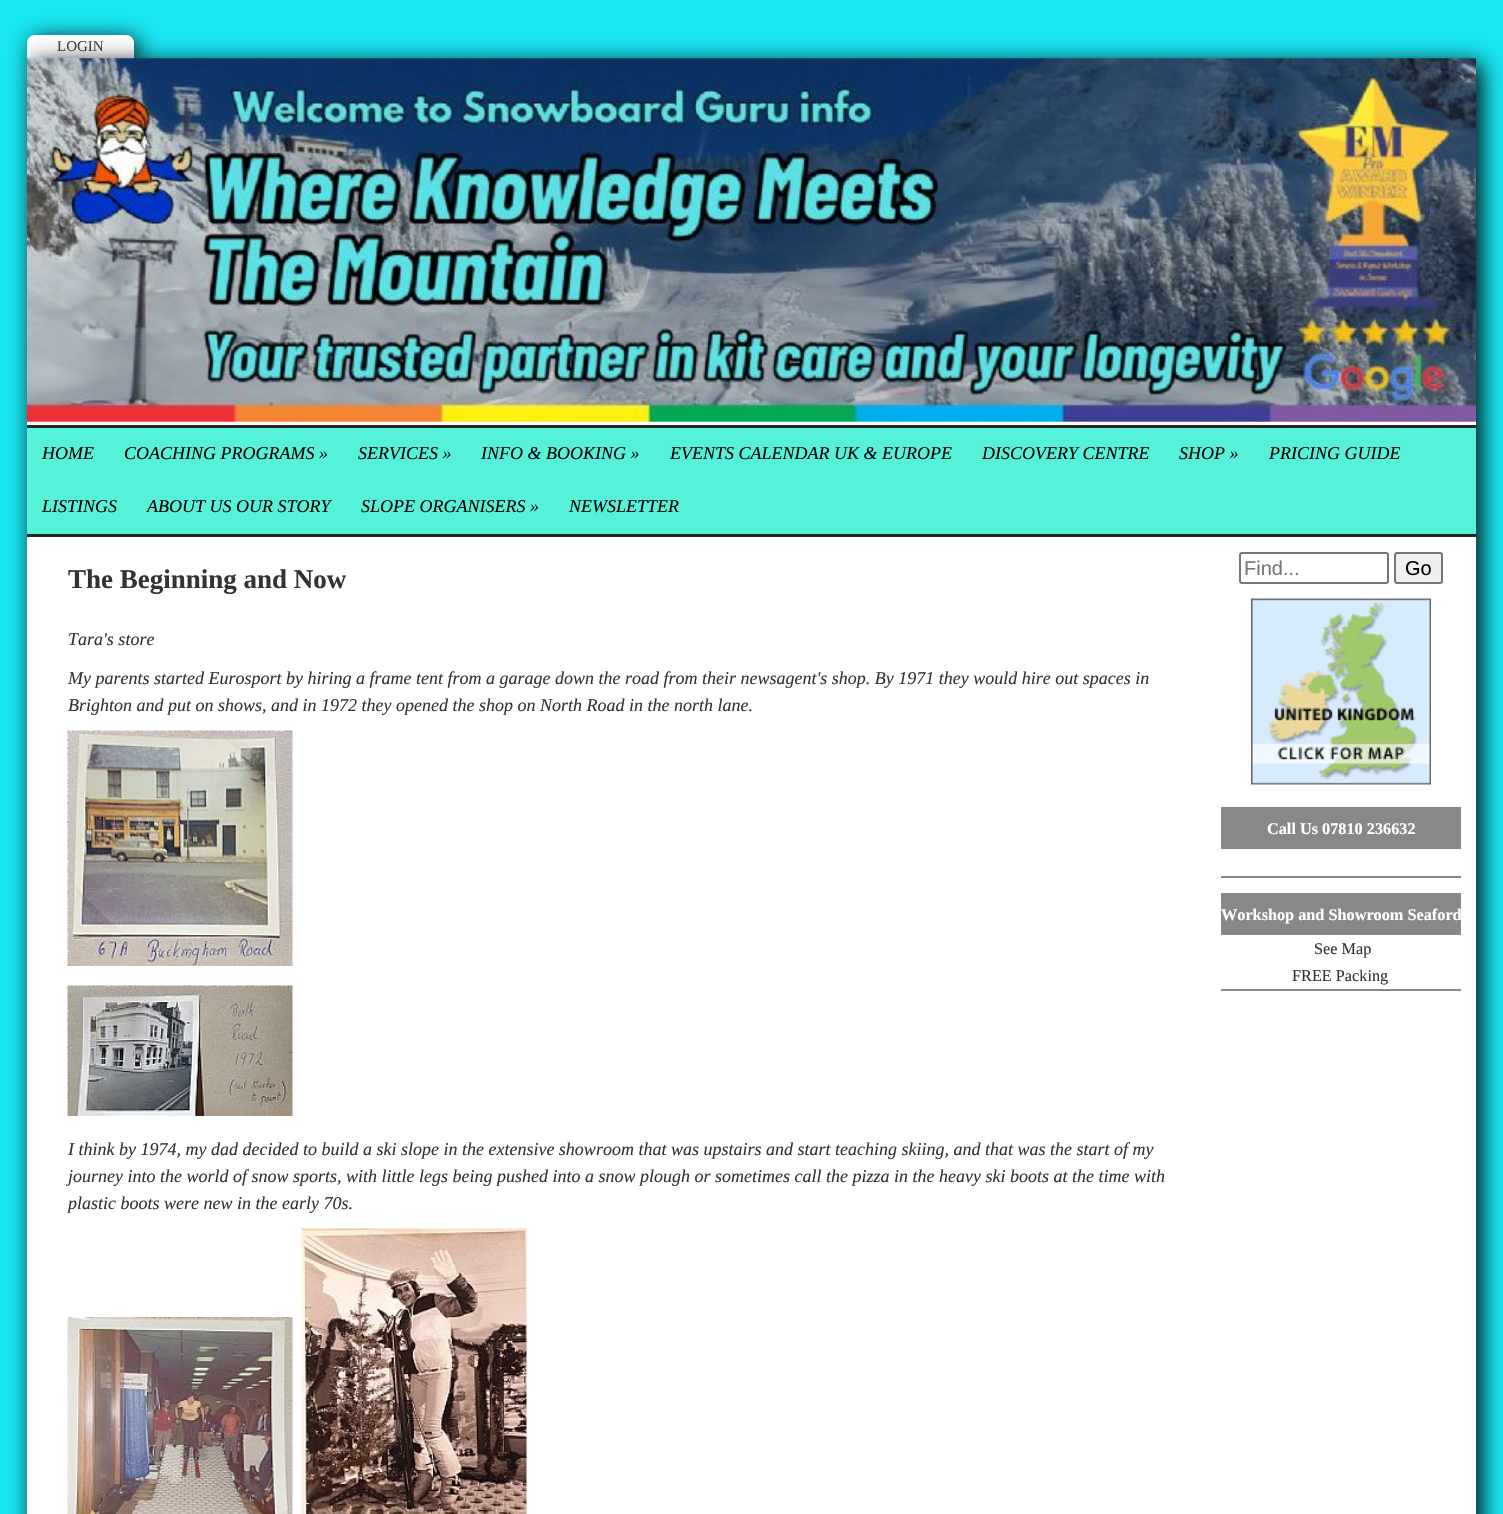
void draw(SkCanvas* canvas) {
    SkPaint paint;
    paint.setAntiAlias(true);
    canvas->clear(0xFF18E6F2);
    paint.setColor(0xFF000000);
    paint.setMaskFilter(SkMaskFilter::MakeBlur(kNormal_SkBlurStyle, 11));
    canvas->drawRoundRect(SkRect::MakeXYWH(32, 39, 106, 24), 8, 8, paint);
    paint.setMaskFilter(nullptr);
    paint.setColor(0xFFFFFFFF);
    canvas->drawPath(SkPathBuilder().moveTo(35, 35).lineTo(126, 35).cubicTo(130.5f, 35, 134, 38.5f, 134, 43).lineTo(134, 59).lineTo(27, 59).lineTo(27, 43).cubicTo(27, 38.5f, 30.5f, 35, 35, 35).close().detach(), paint);
    SkFont font1(fontMgr->matchFamilyStyle("Liberation Serif", SkFontStyle::Normal()), 15);
    font1.setSubpixel(true);
    paint.setColor(0xFF444444);
    canvas->drawString("LOGIN", 57, 51, font1, paint);
    paint.setColor(0xFF000000);
    paint.setMaskFilter(SkMaskFilter::MakeBlur(kNormal_SkBlurStyle, 11));
    canvas->drawRect(SkRect::MakeXYWH(32, 63, 1449, 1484), paint);
    paint.setMaskFilter(nullptr);
    paint.setColor(0xFFFFFFFF);
    canvas->drawRect(SkRect::MakeXYWH(27, 421, 1449, 1093), paint);
    canvas->drawImageRect(SkImages::DeferredFromEncodedData(SkData::MakeFromFileName("img1.png")), SkRect::MakeXYWH(27, 58, 1449, 364), SkSamplingOptions());
    canvas->drawImageRect(SkImages::DeferredFromEncodedData(SkData::MakeFromFileName("img2.png")), SkRect::MakeXYWH(27, 58, 1449, 364), SkSamplingOptions());
    paint.setColor(0xFF55F1D8);
    canvas->drawRect(SkRect::MakeXYWH(27, 428, 1449, 106), paint);
    paint.setColor(0xFF272727);
    canvas->drawRect(SkRect::MakeXYWH(27, 425, 1449, 3), paint);
    canvas->drawRect(SkRect::MakeXYWH(27, 534, 1449, 3), paint);
    SkFont font2(fontMgr->matchFamilyStyle("Liberation Serif", SkFontStyle::Italic()), 18);
    font2.setSubpixel(true);
    paint.setColor(0xFF000000);
    canvas->drawString("HOME", 42, 459, font2, paint);
    canvas->drawString("COACHING PROGRAMS »", 124, 459, font2, paint);
    canvas->drawString("SERVICES »", 358, 459, font2, paint);
    canvas->drawString("INFO & BOOKING »", 481, 459, font2, paint);
    canvas->drawString("EVENTS CALENDAR UK & EUROPE", 670, 459, font2, paint);
    canvas->drawString("DISCOVERY CENTRE", 982, 459, font2, paint);
    canvas->drawString("SHOP »", 1179, 459, font2, paint);
    canvas->drawString("PRICING GUIDE", 1269, 459, font2, paint);
    canvas->drawString("LISTINGS", 42, 512, font2, paint);
    canvas->drawString("ABOUT US OUR STORY", 147, 512, font2, paint);
    canvas->drawString("SLOPE ORGANISERS »", 361, 512, font2, paint);
    canvas->drawString("NEWSLETTER", 569, 512, font2, paint);
    SkFont font3(fontMgr->matchFamilyStyle("Liberation Serif", SkFontStyle::Bold()), 27);
    font3.setSubpixel(true);
    paint.setColor(0xFF333333);
    canvas->drawString("The Beginning and Now", 68, 588, font3, paint);
    canvas->drawString("Tara's store", 68, 645, font2, paint);
    canvas->drawString("My parents started Eurosport by hiring a frame tent from a garage down the road from their newsagent's shop. By 1971 they would hire out spaces in", 68, 684, font2, paint);
    canvas->drawString("Brighton and put on shows, and in 1972 they opened the shop on North Road in the north lane.", 68, 711, font2, paint);
    canvas->drawImageRect(SkImages::DeferredFromEncodedData(SkData::MakeFromFileName("img3.png")), SkRect::MakeXYWH(67, 730, 226, 236), SkSamplingOptions());
    canvas->drawImageRect(SkImages::DeferredFromEncodedData(SkData::MakeFromFileName("img4.png")), SkRect::MakeXYWH(67, 985, 226, 131), SkSamplingOptions());
    canvas->drawString("I think by 1974, my dad decided to build a ski slope in the extensive showroom that was upstairs and start teaching skiing, and that was the start of my", 68, 1155, font2, paint);
    canvas->drawString("journey into the world of snow sports, with little legs being pushed into a snow plough or sometimes call the pizza in the heavy ski boots at the time with", 68, 1182, font2, paint);
    canvas->drawString("plastic boots were new in the early 70s.", 68, 1209, font2, paint);
    canvas->drawImageRect(SkImages::DeferredFromEncodedData(SkData::MakeFromFileName("img5.png")), SkRect::MakeXYWH(67, 1317, 226, 197), SkSamplingOptions());
    canvas->drawImageRect(SkImages::DeferredFromEncodedData(SkData::MakeFromFileName("img6.png")), SkRect::MakeXYWH(301, 1228, 226, 286), SkSamplingOptions());
    paint.setStyle(SkPaint::kStroke_Style);
    paint.setStrokeWidth(2);
    paint.setColor(0xFF767676);
    canvas->drawRoundRect(SkRect::MakeXYWH(1240, 553, 148, 30), 2, 2, paint);
    SkFont font4(fontMgr->matchFamilyStyle("Liberation Sans", SkFontStyle::Normal()), 20);
    font4.setSubpixel(true);
    paint.setStyle(SkPaint::kFill_Style);
    paint.setColor(0xFF757575);
    canvas->drawString("Find...", 1244, 575, font4, paint);
    paint.setColor(0xFFEFEFEF);
    canvas->drawRoundRect(SkRect::MakeXYWH(1395, 553, 47, 30), 2, 2, paint);
    paint.setStyle(SkPaint::kStroke_Style);
    paint.setColor(0xFF767676);
    canvas->drawRoundRect(SkRect::MakeXYWH(1395, 553, 47, 30), 2, 2, paint);
    paint.setStyle(SkPaint::kFill_Style);
    paint.setColor(0xFF000000);
    canvas->drawString("Go", 1405, 575, font4, paint);
    canvas->drawImageRect(SkImages::DeferredFromEncodedData(SkData::MakeFromFileName("img7.png")), SkRect::MakeXYWH(1251, 598, 180, 187), SkSamplingOptions());
    paint.setColor(0xFF888888);
    canvas->drawRect(SkRect::MakeXYWH(1221, 876, 240, 2), paint);
    canvas->drawRect(SkRect::MakeXYWH(1221, 807, 240, 42), paint);
    SkFont font5(fontMgr->matchFamilyStyle("Liberation Serif", SkFontStyle::Bold()), 16.25f);
    font5.setSubpixel(true);
    paint.setColor(0xFFFFFFFF);
    canvas->drawString("Call Us 07810 236632", 1267, 834, font5, paint);
    paint.setColor(0xFF888888);
    canvas->drawRect(SkRect::MakeXYWH(1221, 989, 240, 2), paint);
    canvas->drawRect(SkRect::MakeXYWH(1221, 893, 240, 42), paint);
    paint.setColor(0xFFFFFFFF);
    canvas->drawString("Workshop and Showroom Seaford", 1221, 920, font5, paint);
    SkFont font6(fontMgr->matchFamilyStyle("Liberation Serif", SkFontStyle::Normal()), 16.25f);
    font6.setSubpixel(true);
    paint.setColor(0xFF333333);
    canvas->drawString("See Map", 1314, 954, font6, paint);
    canvas->drawString("FREE Packing", 1292, 981, font6, paint);
}
